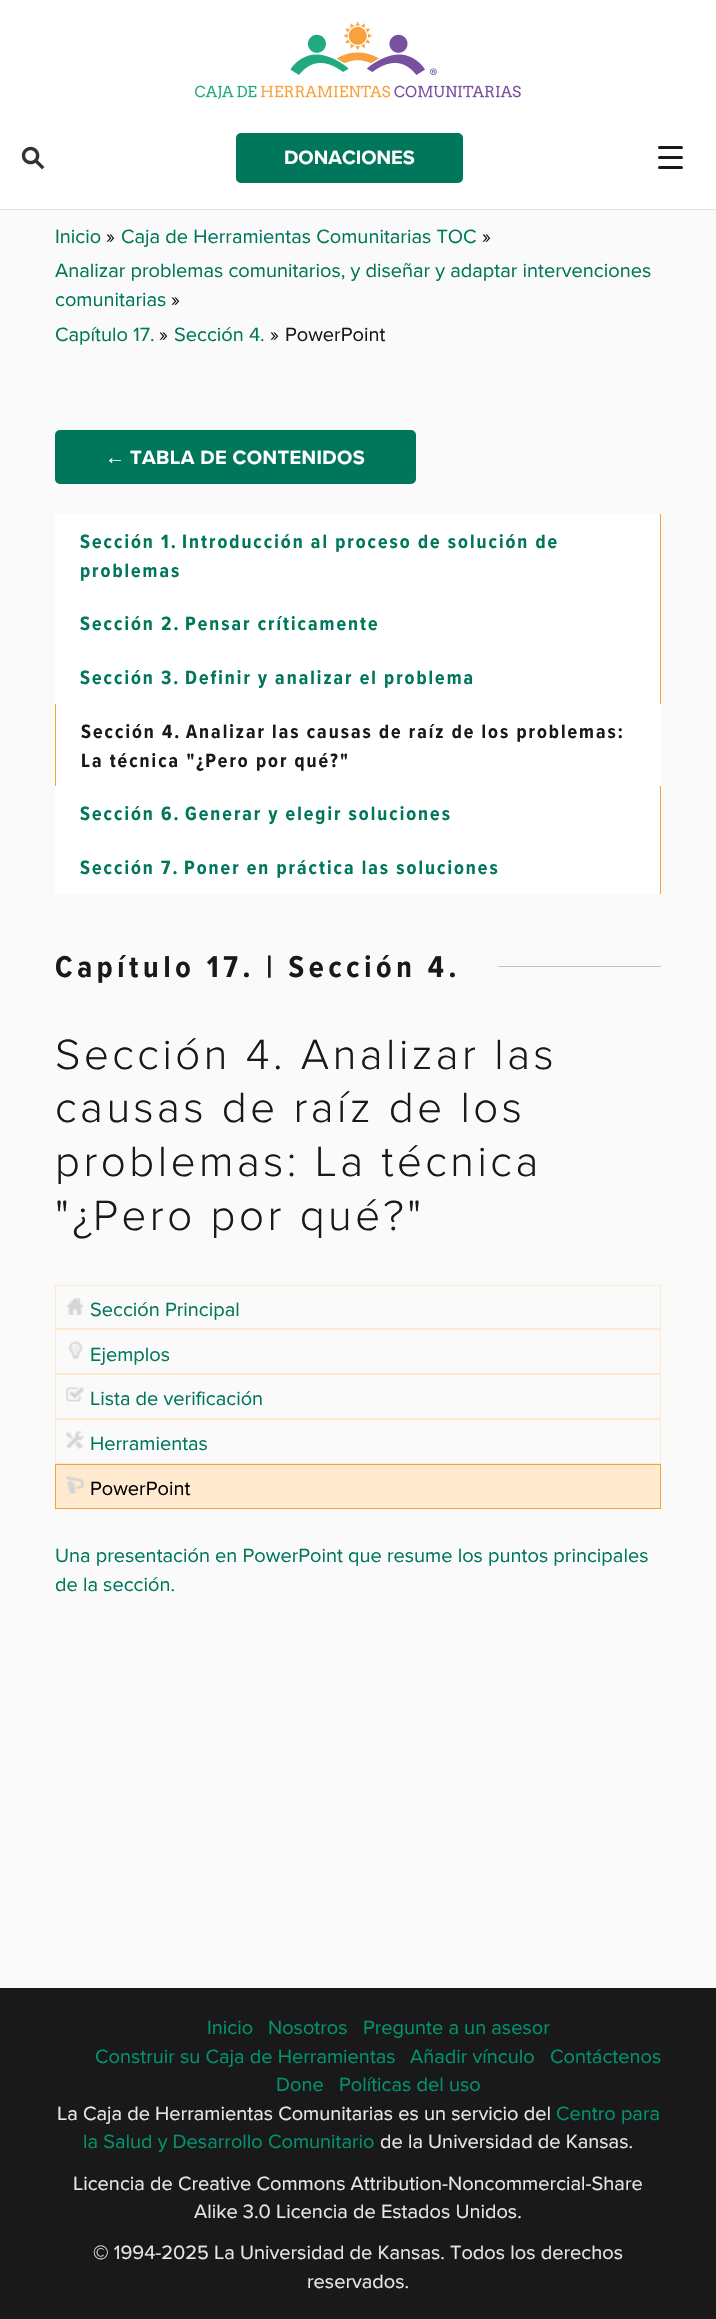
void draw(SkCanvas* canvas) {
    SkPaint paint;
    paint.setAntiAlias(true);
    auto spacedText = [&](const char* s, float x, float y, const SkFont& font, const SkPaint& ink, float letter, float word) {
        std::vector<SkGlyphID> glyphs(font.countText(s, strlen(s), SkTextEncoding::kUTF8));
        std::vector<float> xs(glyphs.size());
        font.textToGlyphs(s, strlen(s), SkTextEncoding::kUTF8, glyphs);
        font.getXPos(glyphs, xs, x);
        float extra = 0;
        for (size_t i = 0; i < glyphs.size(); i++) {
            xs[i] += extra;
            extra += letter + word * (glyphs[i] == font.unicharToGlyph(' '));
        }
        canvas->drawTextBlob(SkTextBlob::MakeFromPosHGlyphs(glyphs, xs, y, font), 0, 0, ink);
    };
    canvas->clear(0xFFFAFAFA);
    paint.setColor(0xFFFFFFFF);
    canvas->drawRect(SkRect::MakeXYWH(0, 0, 716, 209), paint);
    canvas->drawImageRect(SkImages::DeferredFromEncodedData(SkData::MakeFromFileName("img1.png")), SkRect::MakeXYWH(195, 21, 326, 78), SkSamplingOptions());
    canvas->drawImageRect(SkImages::DeferredFromEncodedData(SkData::MakeFromFileName("img2.png")), SkRect::MakeXYWH(21, 146, 24, 24), SkSamplingOptions());
    paint.setColor(0xFF00775B);
    canvas->drawRoundRect(SkRect::MakeXYWH(236, 133, 227, 50), 5, 5, paint);
    SkFont font1(fontMgr->matchFamilyStyle("Proxima Nova", SkFontStyle::Bold()), 20);
    font1.setSubpixel(true);
    paint.setColor(0xFFFFFFFF);
    canvas->drawString("DONACIONES", 284, 164, font1, paint);
    paint.setColor(0xFF191919);
    canvas->drawRoundRect(SkRect::MakeXYWH(658, 146, 25, 3), 1.5f, 1.5f, paint);
    canvas->drawRoundRect(SkRect::MakeXYWH(658, 156, 25, 3), 1.5f, 1.5f, paint);
    canvas->drawRoundRect(SkRect::MakeXYWH(658, 166, 25, 3), 1.5f, 1.5f, paint);
    paint.setColor(0xFFE5E5E5);
    canvas->drawRect(SkRect::MakeXYWH(0, 209, 716, 1), paint);
    SkFont font2(fontMgr->matchFamilyStyle("Proxima Nova", SkFontStyle::Normal()), 20);
    font2.setSubpixel(true);
    paint.setColor(0xFF00775B);
    canvas->drawString("Inicio", 55, 243, font2, paint);
    paint.setColor(0xFF191919);
    canvas->drawString("»", 106, 243, font2, paint);
    paint.setColor(0xFF00775B);
    canvas->drawString("Caja de Herramientas Comunitarias TOC", 121, 243, font2, paint);
    paint.setColor(0xFF191919);
    canvas->drawString("»", 482, 243, font2, paint);
    paint.setColor(0xFF00775B);
    canvas->drawString("Analizar problemas comunitarios, y diseñar y adaptar intervenciones", 55, 277, font2, paint);
    canvas->drawString("comunitarias", 55, 306, font2, paint);
    paint.setColor(0xFF191919);
    canvas->drawString("»", 171, 306, font2, paint);
    paint.setColor(0xFF00775B);
    canvas->drawString("Capítulo 17.", 55, 341, font2, paint);
    paint.setColor(0xFF191919);
    canvas->drawString("»", 159, 341, font2, paint);
    paint.setColor(0xFF00775B);
    canvas->drawString("Sección 4.", 174, 341, font2, paint);
    paint.setColor(0xFF191919);
    canvas->drawString("»", 270, 341, font2, paint);
    canvas->drawString("PowerPoint", 285, 341, font2, paint);
    paint.setColor(0xFF00775B);
    canvas->drawRoundRect(SkRect::MakeXYWH(55, 430, 361, 54), 5, 5, paint);
    SkFont font3(fontMgr->matchFamilyStyle("Liberation Sans", SkFontStyle::Bold()), 20);
    font3.setSubpixel(true);
    paint.setColor(0xFFFFFFFF);
    spacedText("←", 105, 464, font3, paint, 0.4f, 0);
    spacedText("TABLA DE CONTENIDOS", 130, 464, font1, paint, 0.4f, 0);
    canvas->drawRect(SkRect::MakeXYWH(55, 514, 605, 190), paint);
    paint.setColor(0xFFF4A239);
    canvas->drawRect(SkRect::MakeXYWH(660, 514, 1, 190), paint);
    SkFont font4(fontMgr->matchFamilyStyle("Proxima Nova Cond", SkFontStyle::Bold()), 20);
    font4.setSubpixel(true);
    paint.setColor(0xFF00775B);
    spacedText("Sección 1.", 80, 548, font4, paint, 2, 0);
    spacedText("Introducción al proceso de solución de", 182, 548, font4, paint, 2, 0);
    spacedText("problemas", 80, 577, font4, paint, 2, 0);
    spacedText("Sección 2.", 80, 630, font4, paint, 2, 0);
    spacedText("Pensar críticamente", 185, 630, font4, paint, 2, 0);
    spacedText("Sección 3.", 80, 684, font4, paint, 2, 0);
    spacedText("Definir y analizar el problema", 185, 684, font4, paint, 2, 0);
    paint.setColor(0xFFFFFFFF);
    canvas->drawRect(SkRect::MakeXYWH(56, 704, 605, 82), paint);
    paint.setColor(0xFFF4A239);
    canvas->drawRect(SkRect::MakeXYWH(55, 704, 1, 82), paint);
    paint.setColor(0xFF191919);
    spacedText("Sección 4.", 81, 738, font4, paint, 2, 0);
    spacedText("Analizar las causas de raíz de los problemas:", 186, 738, font4, paint, 2, 0);
    spacedText("La técnica \"¿Pero por qué?\"", 81, 767, font4, paint, 2, 0);
    paint.setColor(0xFFFFFFFF);
    canvas->drawRect(SkRect::MakeXYWH(55, 786, 605, 108), paint);
    paint.setColor(0xFFF4A239);
    canvas->drawRect(SkRect::MakeXYWH(660, 786, 1, 108), paint);
    paint.setColor(0xFF00775B);
    spacedText("Sección 6.", 80, 820, font4, paint, 2, 0);
    spacedText("Generar y elegir soluciones", 185, 820, font4, paint, 2, 0);
    spacedText("Sección 7.", 80, 874, font4, paint, 2, 0);
    spacedText("Poner en práctica las soluciones", 184, 874, font4, paint, 2, 0);
    SkFont font5(fontMgr->matchFamilyStyle("Proxima Nova Cond", SkFontStyle::Bold()), 31.25f);
    font5.setSubpixel(true);
    paint.setColor(0xFF191919);
    spacedText("Capítulo 17. | Sección 4.", 55, 977, font5, paint, 4.7f, 0);
    paint.setColor(0xFFC2C2C2);
    canvas->drawRect(SkRect::MakeXYWH(498, 966, 163, 1), paint);
    SkFont font6(fontMgr->matchFamilyStyle("Proxima Nova", SkFontStyle(300, SkFontStyle::kNormal_Width, SkFontStyle::kUpright_Slant)), 43.75f);
    font6.setSubpixel(true);
    paint.setColor(0xFF191919);
    spacedText("Sección 4. Analizar las", 55, 1069, font6, paint, 3.5f, 0);
    spacedText("causas de raíz de los", 55, 1122, font6, paint, 3.5f, 0);
    spacedText("problemas: La técnica", 55, 1176, font6, paint, 3.5f, 0);
    spacedText("\"¿Pero por qué?\"", 55, 1230, font6, paint, 3.5f, 0);
    paint.setStyle(SkPaint::kStroke_Style);
    paint.setStrokeWidth(1);
    paint.setColor(0xFFFFEAD0);
    canvas->drawRect(SkRect::MakeXYWH(55.5f, 1285.5f, 605, 43), paint);
    canvas->drawImageRect(SkImages::DeferredFromEncodedData(SkData::MakeFromFileName("img3.png")), SkRect::MakeXYWH(66, 1297, 18, 18), SkSamplingOptions());
    paint.setStyle(SkPaint::kFill_Style);
    paint.setColor(0xFF00775B);
    canvas->drawString("Sección Principal", 90, 1316, font2, paint);
    paint.setStyle(SkPaint::kStroke_Style);
    paint.setColor(0xFFFFEAD0);
    canvas->drawRect(SkRect::MakeXYWH(55.5f, 1329.5f, 605, 44), paint);
    canvas->drawImageRect(SkImages::DeferredFromEncodedData(SkData::MakeFromFileName("img4.png")), SkRect::MakeXYWH(68, 1341, 15, 18), SkSamplingOptions());
    paint.setStyle(SkPaint::kFill_Style);
    paint.setColor(0xFF00775B);
    canvas->drawString("Ejemplos", 90, 1361, font2, paint);
    paint.setStyle(SkPaint::kStroke_Style);
    paint.setColor(0xFFFFEAD0);
    canvas->drawRect(SkRect::MakeXYWH(55.5f, 1374.5f, 605, 44), paint);
    canvas->drawImageRect(SkImages::DeferredFromEncodedData(SkData::MakeFromFileName("img5.png")), SkRect::MakeXYWH(66, 1387, 18, 15), SkSamplingOptions());
    paint.setStyle(SkPaint::kFill_Style);
    paint.setColor(0xFF00775B);
    canvas->drawString("Lista de verificación", 90, 1405, font2, paint);
    paint.setStyle(SkPaint::kStroke_Style);
    paint.setColor(0xFFFFEAD0);
    canvas->drawRect(SkRect::MakeXYWH(55.5f, 1419.5f, 605, 44), paint);
    canvas->drawImageRect(SkImages::DeferredFromEncodedData(SkData::MakeFromFileName("img6.png")), SkRect::MakeXYWH(66, 1431, 18, 18), SkSamplingOptions());
    paint.setStyle(SkPaint::kFill_Style);
    paint.setColor(0xFF00775B);
    canvas->drawString("Herramientas", 90, 1450, font2, paint);
    paint.setColor(0xFFFFEAD0);
    canvas->drawRect(SkRect::MakeXYWH(55.5f, 1464.5f, 605, 44), paint);
    paint.setStyle(SkPaint::kStroke_Style);
    paint.setColor(0xFFF4A239);
    canvas->drawRect(SkRect::MakeXYWH(55.5f, 1464.5f, 605, 44), paint);
    canvas->drawImageRect(SkImages::DeferredFromEncodedData(SkData::MakeFromFileName("img7.png")), SkRect::MakeXYWH(66, 1476, 18, 18), SkSamplingOptions());
    paint.setStyle(SkPaint::kFill_Style);
    paint.setColor(0xFF000000);
    canvas->drawString("PowerPoint", 90, 1495, font2, paint);
    paint.setColor(0xFF00775B);
    canvas->drawString("Una presentación en PowerPoint que resume los puntos principales", 55, 1562, font2, paint);
    canvas->drawString("de la sección.", 55, 1591, font2, paint);
    paint.setColor(0xFF191919);
    canvas->drawRect(SkRect::MakeXYWH(0, 1988, 716, 331), paint);
    paint.setColor(0xFF009470);
    canvas->drawString("Inicio", 207, 2034, font2, paint);
    canvas->drawString("Nosotros", 268, 2034, font2, paint);
    canvas->drawString("Pregunte a un asesor", 363, 2034, font2, paint);
    canvas->drawString("Construir su Caja de Herramientas", 95, 2063, font2, paint);
    canvas->drawString("Añadir vínculo", 410, 2063, font2, paint);
    canvas->drawString("Contáctenos", 550, 2063, font2, paint);
    canvas->drawString("Done", 276, 2091, font2, paint);
    canvas->drawString("Políticas del uso", 339, 2091, font2, paint);
    paint.setColor(0xFFE6E6E6);
    canvas->drawString("La Caja de Herramientas Comunitarias es un servicio del", 57, 2120, font2, paint);
    paint.setColor(0xFF009470);
    canvas->drawString("Centro para", 556, 2120, font2, paint);
    canvas->drawString("la Salud y Desarrollo Comunitario", 83, 2148, font2, paint);
    paint.setColor(0xFFE6E6E6);
    canvas->drawString("de la Universidad de Kansas.", 380, 2148, font2, paint);
    canvas->drawString("Licencia de Creative Commons Attribution-Noncommercial-Share", 73, 2190, font2, paint);
    canvas->drawString("Alike 3.0 Licencia de Estados Unidos.", 194, 2218, font2, paint);
    canvas->drawString("© 1994-2025 La Universidad de Kansas. Todos los derechos", 93, 2259, font2, paint);
    canvas->drawString("reservados.", 307, 2288, font2, paint);
}
